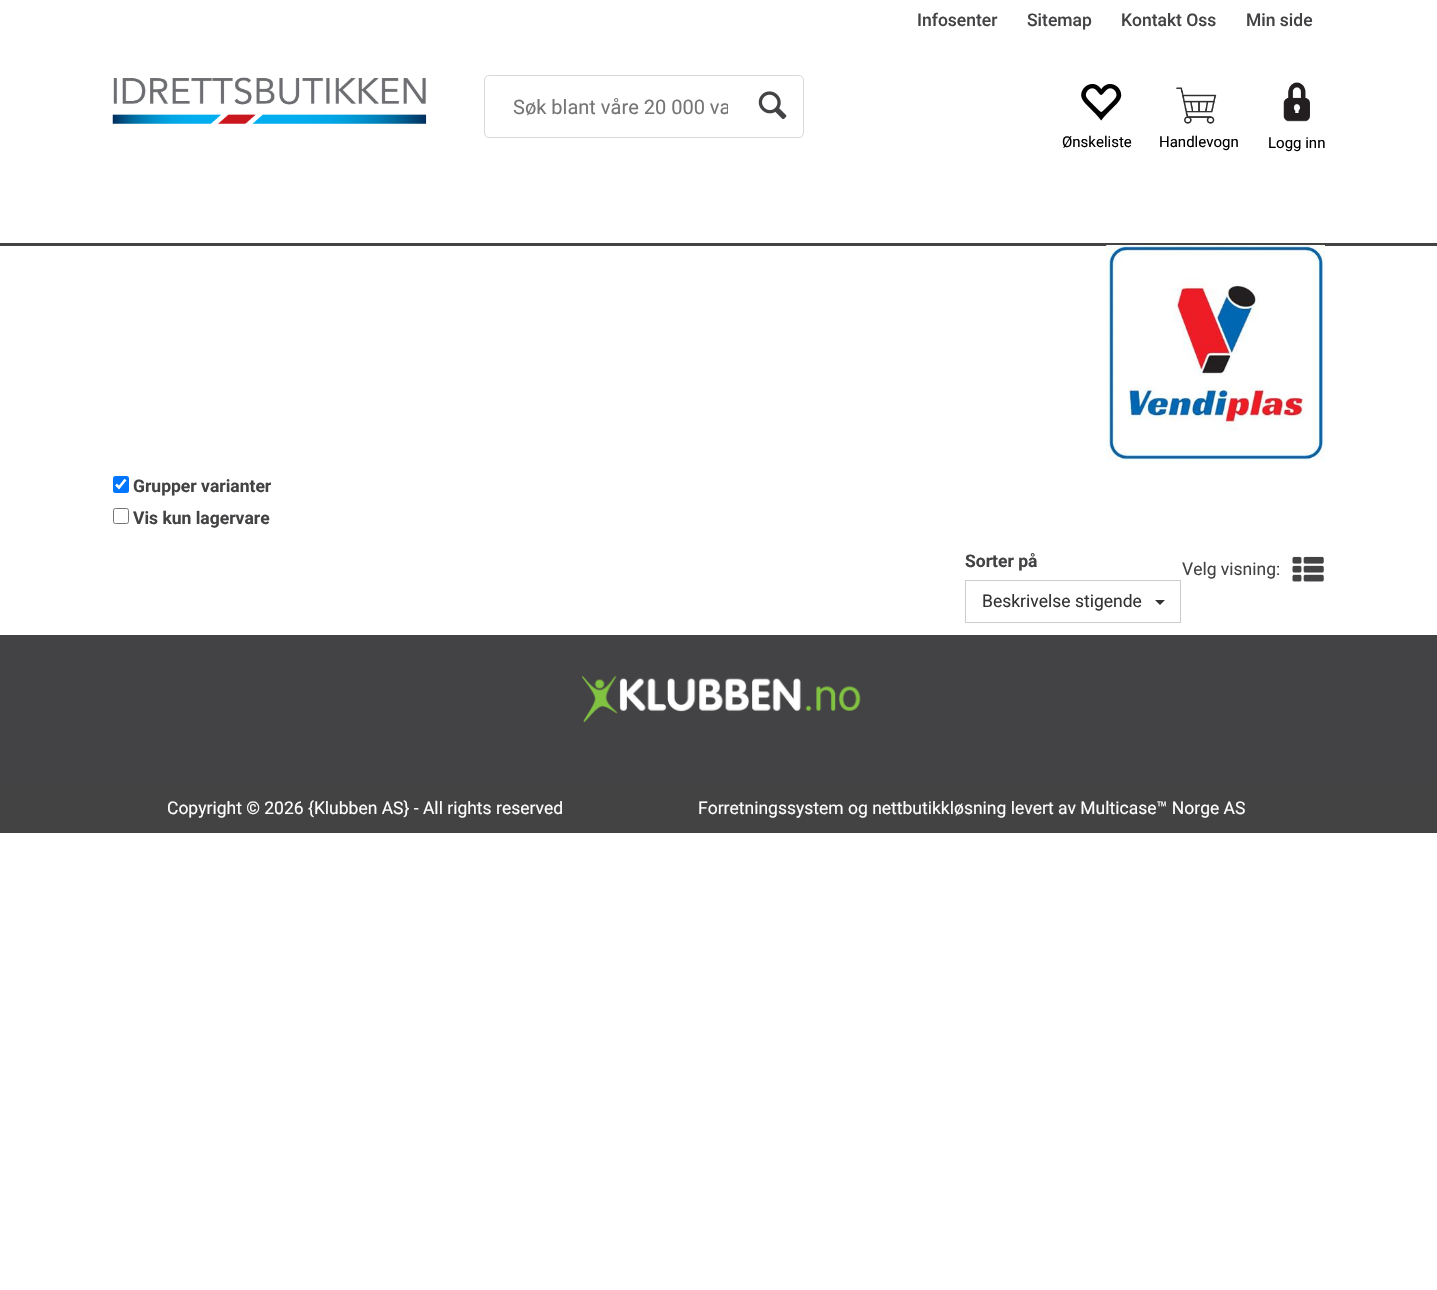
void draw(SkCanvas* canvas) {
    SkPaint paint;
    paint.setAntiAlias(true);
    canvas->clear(0xFFFFFFFF);
    SkFont font1(fontMgr->matchFamilyStyle("Roboto", SkFontStyle(500, SkFontStyle::kNormal_Width, SkFontStyle::kUpright_Slant)), 17.5f);
    font1.setSubpixel(true);
    paint.setColor(0xFF434244);
    canvas->drawString("Infosenter", 917, 26, font1, paint);
    canvas->drawString("Sitemap", 1027, 26, font1, paint);
    canvas->drawString("Kontakt Oss", 1121, 26, font1, paint);
    canvas->drawString("Min side", 1246, 26, font1, paint);
    canvas->drawImageRect(SkImages::DeferredFromEncodedData(SkData::MakeFromFileName("img1.png")), SkRect::MakeXYWH(112, 77, 315, 47), SkSamplingOptions());
    paint.setStyle(SkPaint::kStroke_Style);
    paint.setStrokeWidth(1);
    paint.setColor(0xFFD7D9D9);
    canvas->drawRoundRect(SkRect::MakeXYWH(484.5f, 75.5f, 319, 62), 4.5f, 4.5f, paint);
    canvas->save();
    canvas->clipRect(SkRect::MakeXYWH(513, 95, 215, 24));
    SkFont font2(fontMgr->matchFamilyStyle("Roboto", SkFontStyle::Normal()), 20);
    font2.setSubpixel(true);
    paint.setStyle(SkPaint::kFill_Style);
    paint.setColor(0xFF757575);
    canvas->drawString("Søk blant våre 20 000 va", 513, 114, font2, paint);
    canvas->restore();
    canvas->drawImageRect(SkImages::DeferredFromEncodedData(SkData::MakeFromFileName("img2.png")), SkRect::MakeXYWH(758, 91, 29, 29), SkSamplingOptions());
    canvas->drawImageRect(SkImages::DeferredFromEncodedData(SkData::MakeFromFileName("img3.png")), SkRect::MakeXYWH(1081, 84, 41, 37), SkSamplingOptions());
    SkFont font3(fontMgr->matchFamilyStyle("Roboto", SkFontStyle::Normal()), 15);
    font3.setSubpixel(true);
    paint.setColor(0xFF000000);
    canvas->drawString("Ønskeliste", 1062, 147, font3, paint);
    canvas->drawImageRect(SkImages::DeferredFromEncodedData(SkData::MakeFromFileName("img4.png")), SkRect::MakeXYWH(1176, 87, 41, 37), SkSamplingOptions());
    canvas->drawString("Handlevogn", 1159, 147, font3, paint);
    canvas->drawImageRect(SkImages::DeferredFromEncodedData(SkData::MakeFromFileName("img5.png")), SkRect::MakeXYWH(1283, 82, 27, 40), SkSamplingOptions());
    canvas->drawString("Logg inn", 1268, 148, font3, paint);
    paint.setColor(0xFF434343);
    canvas->drawRect(SkRect::MakeXYWH(0, 243, 1437, 3), paint);
    canvas->drawImageRect(SkImages::DeferredFromEncodedData(SkData::MakeFromFileName("img6.png")), SkRect::MakeXYWH(1106, 245, 219, 216), SkSamplingOptions());
    paint.setColor(0xFF0075FF);
    canvas->drawRoundRect(SkRect::MakeXYWH(113, 476, 16, 17), 2.5f, 2.5f, paint);
    paint.setStyle(SkPaint::kStroke_Style);
    paint.setStrokeWidth(2.6f);
    paint.setColor(0xFFFFFFFF);
    canvas->drawPath(SkPathBuilder().moveTo(116, 484.5f).lineTo(119, 487.5f).lineTo(125.5f, 479.5f).detach(), paint);
    SkFont font4(fontMgr->matchFamilyStyle("Roboto", SkFontStyle::Bold()), 17.5f);
    font4.setSubpixel(true);
    paint.setStyle(SkPaint::kFill_Style);
    paint.setColor(0xFF434244);
    canvas->drawString("Grupper varianter", 133, 492, font4, paint);
    paint.setStyle(SkPaint::kStroke_Style);
    paint.setStrokeWidth(1);
    paint.setColor(0xFF767676);
    canvas->drawRoundRect(SkRect::MakeXYWH(113.5f, 508.5f, 15, 15), 2, 2, paint);
    paint.setStyle(SkPaint::kFill_Style);
    paint.setColor(0xFF434244);
    canvas->drawString("Vis kun lagervare", 133, 524, font4, paint);
    canvas->drawString("Sorter på", 965, 567, font4, paint);
    paint.setStyle(SkPaint::kStroke_Style);
    paint.setColor(0xFFCCCCCC);
    canvas->drawRect(SkRect::MakeXYWH(965.5f, 580.5f, 215, 42), paint);
    SkFont font5(fontMgr->matchFamilyStyle("Roboto", SkFontStyle::Normal()), 17.5f);
    font5.setSubpixel(true);
    paint.setStyle(SkPaint::kFill_Style);
    paint.setColor(0xFF333333);
    canvas->drawString("Beskrivelse stigende", 982, 607, font5, paint);
    canvas->drawPath(SkPathBuilder().moveTo(1155, 600).lineTo(1165, 600).lineTo(1160, 605).close().detach(), paint);
    paint.setColor(0xFF434244);
    canvas->drawString("Velg visning:", 1182, 575, font5, paint);
    canvas->drawImageRect(SkImages::DeferredFromEncodedData(SkData::MakeFromFileName("img7.png")), SkRect::MakeXYWH(1292, 556, 32, 26), SkSamplingOptions());
    canvas->drawRect(SkRect::MakeXYWH(0, 635, 1437, 148), paint);
    canvas->drawImageRect(SkImages::DeferredFromEncodedData(SkData::MakeFromFileName("img8.png")), SkRect::MakeXYWH(581, 675, 280, 48), SkSamplingOptions());
    paint.setColor(0xFF434343);
    canvas->drawRect(SkRect::MakeXYWH(0, 783, 1437, 50), paint);
    paint.setColor(0xFFFFFFFF);
    canvas->drawString("Copyright © 2026 {Klubben AS} - All rights reserved", 167, 814, font5, paint);
    canvas->drawString("Forretningssystem og nettbutikkløsning levert av Multicase™ Norge AS", 698, 814, font5, paint);
}
